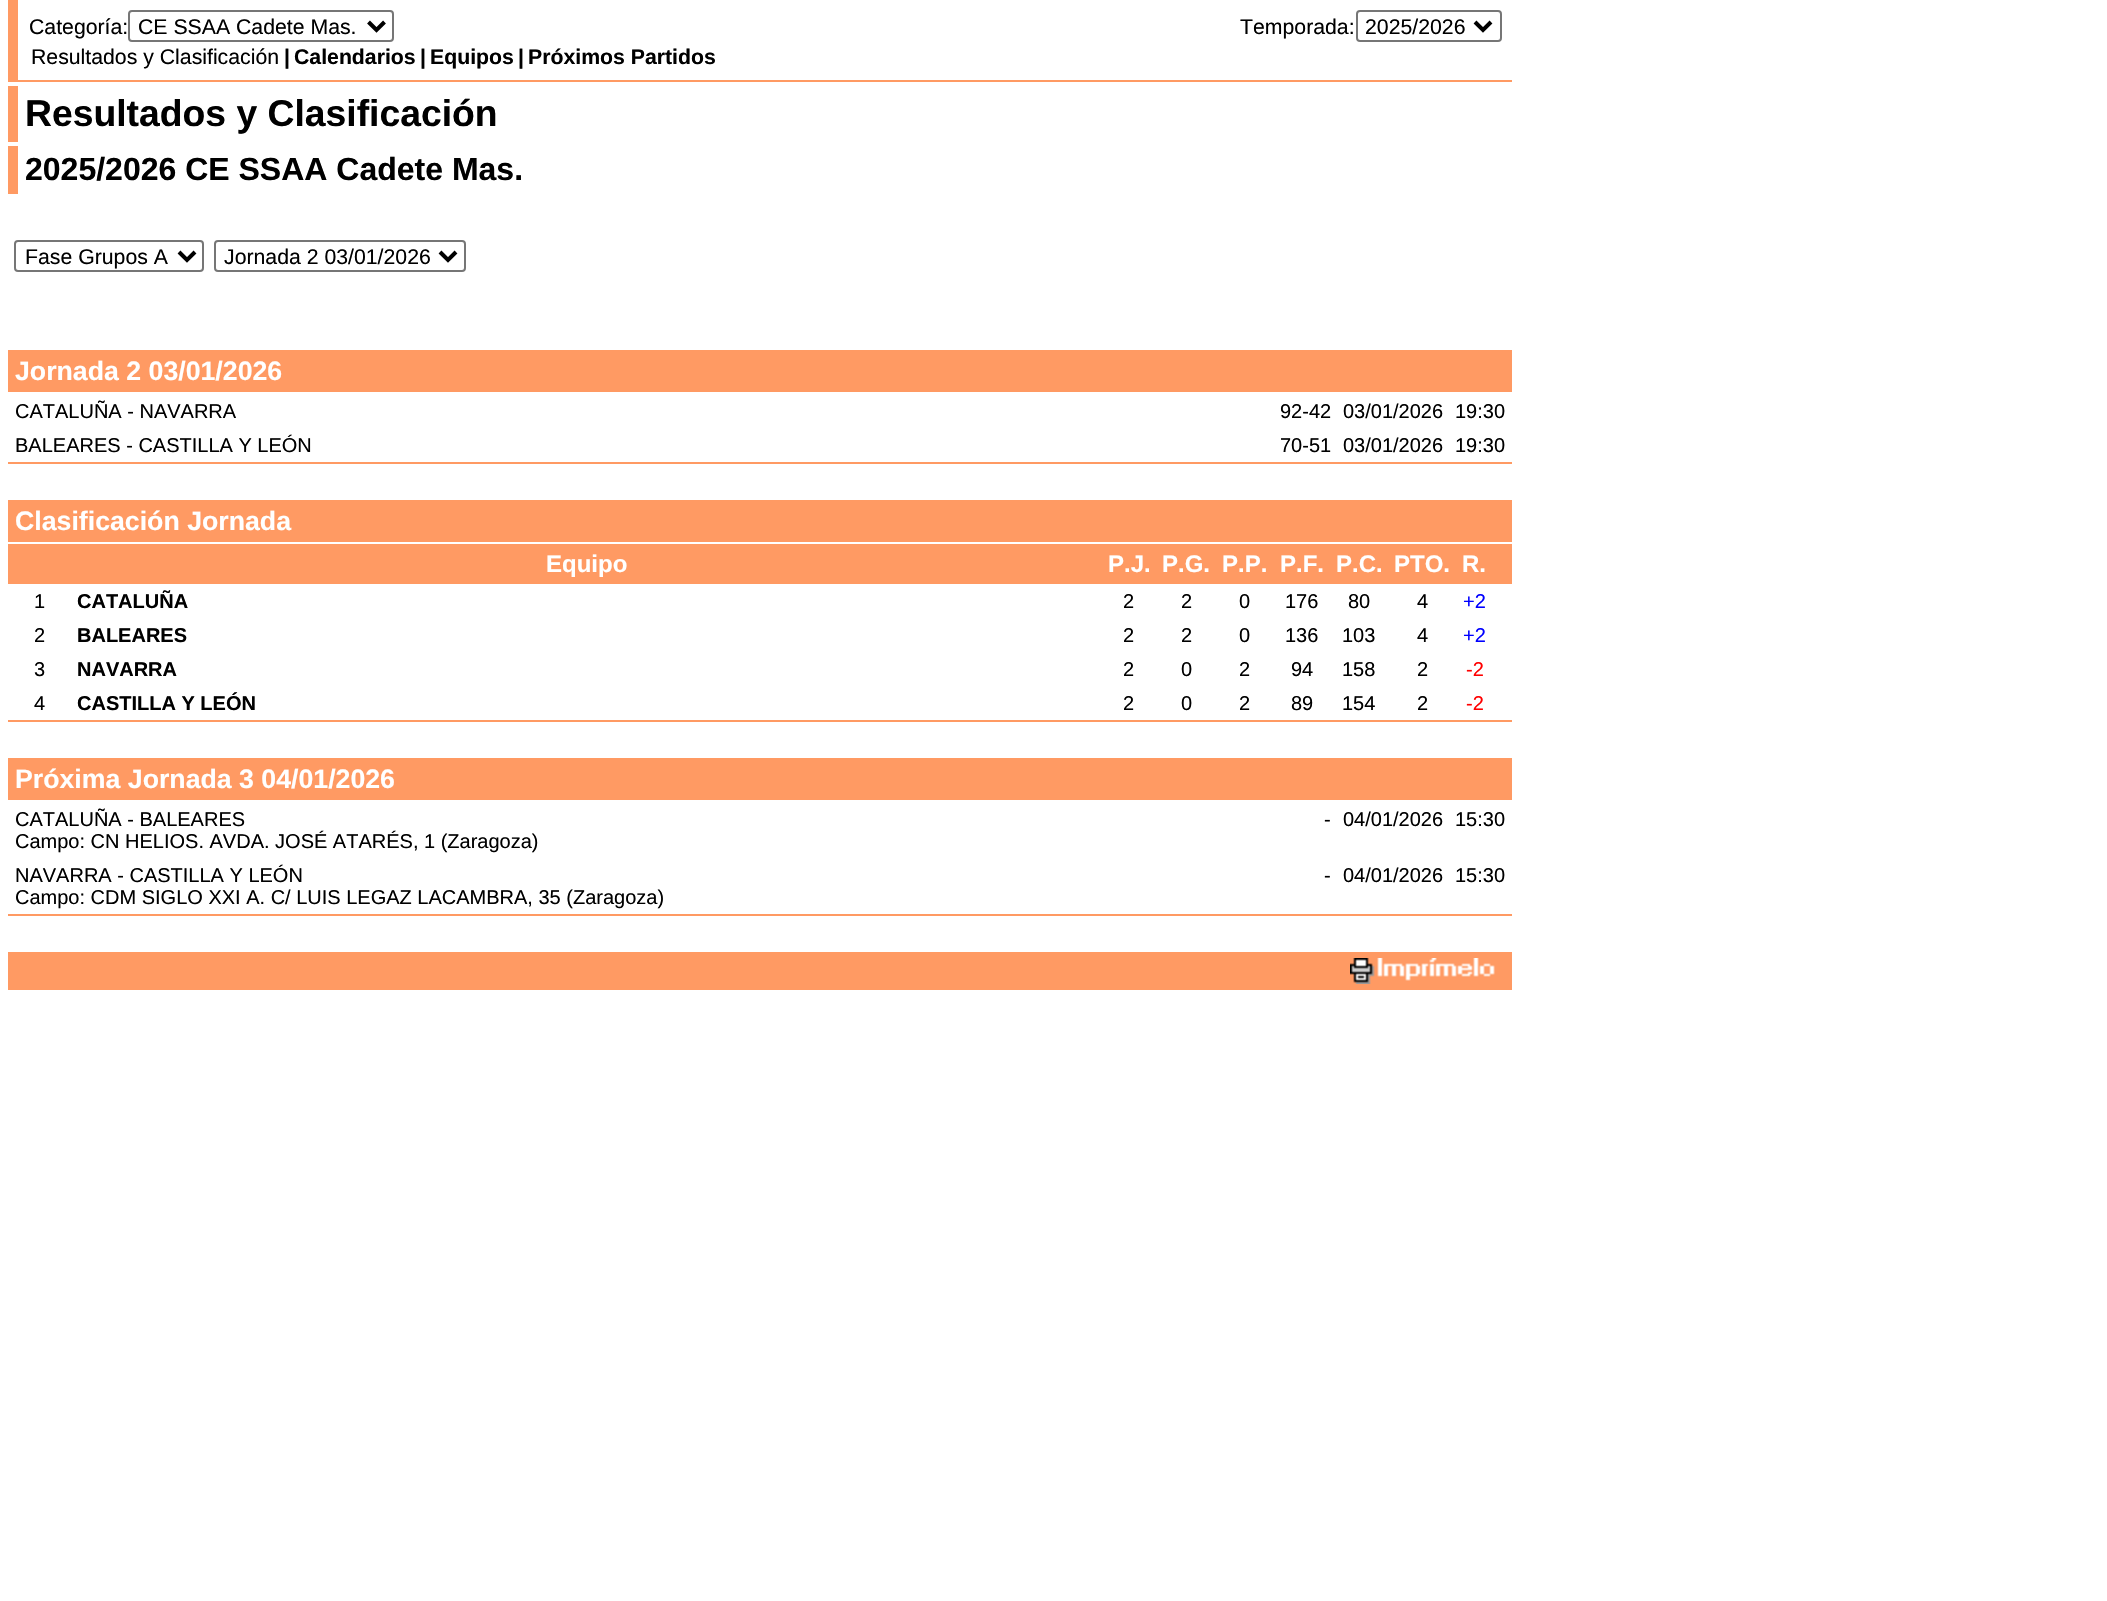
void draw(SkCanvas* canvas) {
    SkPaint paint;
    paint.setAntiAlias(true);
    canvas->clear(0xFFFFFFFF);
    paint.setColor(0xFFFF9A63);
    canvas->drawRect(SkRect::MakeXYWH(18, 80, 1494, 2), paint);
    canvas->drawRect(SkRect::MakeXYWH(8, 0, 10, 82), paint);
    SkFont font1(fontMgr->matchFamilyStyle("Liberation Sans", SkFontStyle::Normal()), 21.25f);
    font1.setSubpixel(true);
    paint.setColor(0xFF000000);
    canvas->drawString("Categoría:", 29, 34, font1, paint);
    paint.setStyle(SkPaint::kStroke_Style);
    paint.setStrokeWidth(2);
    paint.setColor(0xFF767676);
    canvas->drawRoundRect(SkRect::MakeXYWH(129, 11, 264, 30), 3, 3, paint);
    paint.setStrokeWidth(4);
    paint.setColor(0xFF000000);
    canvas->drawPath(SkPathBuilder().moveTo(368.5f, 22).lineTo(376.5f, 30).lineTo(384.5f, 22).detach(), paint);
    paint.setStyle(SkPaint::kFill_Style);
    canvas->drawString("CE SSAA Cadete Mas.", 138, 34, font1, paint);
    canvas->drawString("Temporada:", 1240, 34, font1, paint);
    paint.setStyle(SkPaint::kStroke_Style);
    paint.setStrokeWidth(2);
    paint.setColor(0xFF767676);
    canvas->drawRoundRect(SkRect::MakeXYWH(1357, 11, 144, 30), 3, 3, paint);
    paint.setStrokeWidth(4);
    paint.setColor(0xFF000000);
    canvas->drawPath(SkPathBuilder().moveTo(1475, 22).lineTo(1483, 30).lineTo(1491, 22).detach(), paint);
    paint.setStyle(SkPaint::kFill_Style);
    canvas->drawString("2025/2026", 1365, 34, font1, paint);
    canvas->drawString("Resultados y Clasificación", 31, 64, font1, paint);
    SkFont font2(fontMgr->matchFamilyStyle("Liberation Sans", SkFontStyle::Bold()), 21.25f);
    font2.setSubpixel(true);
    canvas->drawString("|", 284, 64, font2, paint);
    canvas->drawString("Calendarios", 294, 64, font2, paint);
    canvas->drawString("|", 420, 64, font2, paint);
    canvas->drawString("Equipos", 430, 64, font2, paint);
    canvas->drawString("|", 518, 64, font2, paint);
    canvas->drawString("Próximos Partidos", 528, 64, font2, paint);
    paint.setColor(0xFFFF9A63);
    canvas->drawRect(SkRect::MakeXYWH(8, 86, 10, 56), paint);
    SkFont font3(fontMgr->matchFamilyStyle("Liberation Sans", SkFontStyle::Bold()), 37.3f);
    font3.setSubpixel(true);
    paint.setColor(0xFF000000);
    canvas->drawString("Resultados y Clasificación", 25, 126, font3, paint);
    paint.setColor(0xFFFF9A63);
    canvas->drawRect(SkRect::MakeXYWH(8, 146, 10, 48), paint);
    SkFont font4(fontMgr->matchFamilyStyle("Liberation Sans", SkFontStyle::Bold()), 32);
    font4.setSubpixel(true);
    paint.setColor(0xFF000000);
    canvas->drawString("2025/2026 CE SSAA Cadete Mas.", 25, 180, font4, paint);
    paint.setStyle(SkPaint::kStroke_Style);
    paint.setStrokeWidth(2);
    paint.setColor(0xFF767676);
    canvas->drawRoundRect(SkRect::MakeXYWH(15, 241, 188, 30), 3, 3, paint);
    paint.setStrokeWidth(4);
    paint.setColor(0xFF000000);
    canvas->drawPath(SkPathBuilder().moveTo(179, 252).lineTo(187, 260).lineTo(195, 252).detach(), paint);
    paint.setStyle(SkPaint::kFill_Style);
    canvas->drawString("Fase Grupos A", 25, 264, font1, paint);
    paint.setStyle(SkPaint::kStroke_Style);
    paint.setStrokeWidth(2);
    paint.setColor(0xFF767676);
    canvas->drawRoundRect(SkRect::MakeXYWH(215, 241, 250, 30), 3, 3, paint);
    paint.setStrokeWidth(4);
    paint.setColor(0xFF000000);
    canvas->drawPath(SkPathBuilder().moveTo(440, 252).lineTo(448, 260).lineTo(456, 252).detach(), paint);
    paint.setStyle(SkPaint::kFill_Style);
    canvas->drawString("Jornada 2 03/01/2026", 224, 264, font1, paint);
    paint.setColor(0xFFFF9A63);
    canvas->drawRect(SkRect::MakeXYWH(8, 350, 1504, 42), paint);
    SkFont font5(fontMgr->matchFamilyStyle("Liberation Sans", SkFontStyle::Bold()), 26.7f);
    font5.setSubpixel(true);
    paint.setColor(0xFFFFFFFF);
    canvas->drawString("Jornada 2 03/01/2026", 15, 380, font5, paint);
    paint.setColor(0xFFFF9A63);
    canvas->drawRect(SkRect::MakeXYWH(8, 462, 1504, 2), paint);
    SkFont font6(fontMgr->matchFamilyStyle("Liberation Sans", SkFontStyle::Normal()), 20);
    font6.setSubpixel(true);
    paint.setColor(0xFF000000);
    canvas->drawString("CATALUÑA - NAVARRA", 15, 418, font6, paint);
    canvas->drawString("92-42", 1280, 418, font6, paint);
    canvas->drawString("03/01/2026", 1343, 418, font6, paint);
    canvas->drawString("19:30", 1455, 418, font6, paint);
    canvas->drawString("BALEARES - CASTILLA Y LEÓN", 15, 452, font6, paint);
    canvas->drawString("70-51", 1280, 452, font6, paint);
    canvas->drawString("03/01/2026", 1343, 452, font6, paint);
    canvas->drawString("19:30", 1455, 452, font6, paint);
    paint.setColor(0xFFFF9A63);
    canvas->drawRect(SkRect::MakeXYWH(8, 500, 1504, 42), paint);
    paint.setColor(0xFFFFFFFF);
    canvas->drawString("Clasificación Jornada", 15, 530, font5, paint);
    paint.setColor(0xFFFF9A63);
    canvas->drawRect(SkRect::MakeXYWH(8, 720, 1504, 2), paint);
    canvas->drawRect(SkRect::MakeXYWH(8, 544, 1504, 40), paint);
    SkFont font7(fontMgr->matchFamilyStyle("Liberation Sans", SkFontStyle::Bold()), 24);
    font7.setSubpixel(true);
    paint.setColor(0xFFFFFFFF);
    canvas->drawString("Equipo", 546, 572, font7, paint);
    canvas->drawString("P.J.", 1108, 572, font7, paint);
    canvas->drawString("P.G.", 1162, 572, font7, paint);
    canvas->drawString("P.P.", 1222, 572, font7, paint);
    canvas->drawString("P.F.", 1280, 572, font7, paint);
    canvas->drawString("P.C.", 1336, 572, font7, paint);
    canvas->drawString("PTO.", 1394, 572, font7, paint);
    canvas->drawString("R.", 1462, 572, font7, paint);
    paint.setColor(0xFF000000);
    canvas->drawString("1", 34, 608, font6, paint);
    SkFont font8(fontMgr->matchFamilyStyle("Liberation Sans", SkFontStyle::Bold()), 20);
    font8.setSubpixel(true);
    canvas->drawString("CATALUÑA", 77, 608, font8, paint);
    canvas->drawString("2", 1123, 608, font6, paint);
    canvas->drawString("2", 1181, 608, font6, paint);
    canvas->drawString("0", 1239, 608, font6, paint);
    canvas->drawString("176", 1285, 608, font6, paint);
    canvas->drawString("80", 1348, 608, font6, paint);
    canvas->drawString("4", 1417, 608, font6, paint);
    paint.setColor(0xFF0000FF);
    canvas->drawString("+2", 1463, 608, font6, paint);
    paint.setColor(0xFF000000);
    canvas->drawString("2", 34, 642, font6, paint);
    canvas->drawString("BALEARES", 77, 642, font8, paint);
    canvas->drawString("2", 1123, 642, font6, paint);
    canvas->drawString("2", 1181, 642, font6, paint);
    canvas->drawString("0", 1239, 642, font6, paint);
    canvas->drawString("136", 1285, 642, font6, paint);
    canvas->drawString("103", 1342, 642, font6, paint);
    canvas->drawString("4", 1417, 642, font6, paint);
    paint.setColor(0xFF0000FF);
    canvas->drawString("+2", 1463, 642, font6, paint);
    paint.setColor(0xFF000000);
    canvas->drawString("3", 34, 676, font6, paint);
    canvas->drawString("NAVARRA", 77, 676, font8, paint);
    canvas->drawString("2", 1123, 676, font6, paint);
    canvas->drawString("0", 1181, 676, font6, paint);
    canvas->drawString("2", 1239, 676, font6, paint);
    canvas->drawString("94", 1291, 676, font6, paint);
    canvas->drawString("158", 1342, 676, font6, paint);
    canvas->drawString("2", 1417, 676, font6, paint);
    paint.setColor(0xFFFF0000);
    canvas->drawString("-2", 1466, 676, font6, paint);
    paint.setColor(0xFF000000);
    canvas->drawString("4", 34, 710, font6, paint);
    canvas->drawString("CASTILLA Y LEÓN", 77, 710, font8, paint);
    canvas->drawString("2", 1123, 710, font6, paint);
    canvas->drawString("0", 1181, 710, font6, paint);
    canvas->drawString("2", 1239, 710, font6, paint);
    canvas->drawString("89", 1291, 710, font6, paint);
    canvas->drawString("154", 1342, 710, font6, paint);
    canvas->drawString("2", 1417, 710, font6, paint);
    paint.setColor(0xFFFF0000);
    canvas->drawString("-2", 1466, 710, font6, paint);
    paint.setColor(0xFFFF9A63);
    canvas->drawRect(SkRect::MakeXYWH(8, 758, 1504, 42), paint);
    paint.setColor(0xFFFFFFFF);
    canvas->drawString("Próxima Jornada 3 04/01/2026", 15, 788, font5, paint);
    paint.setColor(0xFFFF9A63);
    canvas->drawRect(SkRect::MakeXYWH(8, 914, 1504, 2), paint);
    paint.setColor(0xFF000000);
    canvas->drawString("CATALUÑA - BALEARES", 15, 826, font6, paint);
    canvas->drawString("Campo: CN HELIOS. AVDA. JOSÉ ATARÉS, 1 (Zaragoza)", 15, 848, font6, paint);
    canvas->drawString("-", 1324, 826, font6, paint);
    canvas->drawString("04/01/2026", 1343, 826, font6, paint);
    canvas->drawString("15:30", 1455, 826, font6, paint);
    canvas->drawString("NAVARRA - CASTILLA Y LEÓN", 15, 882, font6, paint);
    canvas->drawString("Campo: CDM SIGLO XXI A. C/ LUIS LEGAZ LACAMBRA, 35 (Zaragoza)", 15, 904, font6, paint);
    canvas->drawString("-", 1324, 882, font6, paint);
    canvas->drawString("04/01/2026", 1343, 882, font6, paint);
    canvas->drawString("15:30", 1455, 882, font6, paint);
    paint.setColor(0xFFFF9A63);
    canvas->drawRect(SkRect::MakeXYWH(8, 952, 1504, 38), paint);
    canvas->drawImageRect(SkImages::DeferredFromEncodedData(SkData::MakeFromFileName("img1.png")), SkRect::MakeXYWH(1350, 958, 145, 26), SkSamplingOptions());
}
